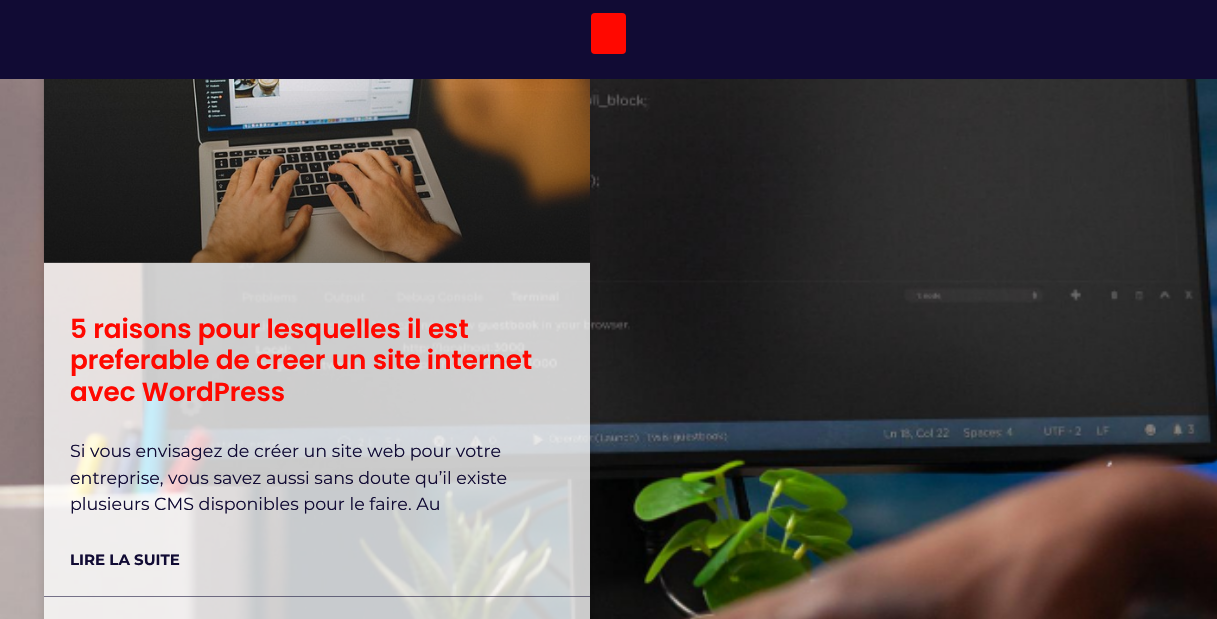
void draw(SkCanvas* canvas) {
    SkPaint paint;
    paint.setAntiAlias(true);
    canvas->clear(0xFFFFFFFF);
    canvas->drawImageRect(SkImages::DeferredFromEncodedData(SkData::MakeFromFileName("img1.png")), SkRect::MakeXYWH(0, 79, 1217, 540), SkSamplingOptions());
    canvas->save();
    canvas->clipPath(SkPathBuilder(SkPathFillType::kEvenOdd).moveTo(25, 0).lineTo(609, 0).lineTo(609, 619).lineTo(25, 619).close().moveTo(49, 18).lineTo(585, 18).cubicTo(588, 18, 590, 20, 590, 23).lineTo(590, 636).cubicTo(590, 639, 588, 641, 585, 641).lineTo(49, 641).cubicTo(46, 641, 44, 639, 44, 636).lineTo(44, 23).cubicTo(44, 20, 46, 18, 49, 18).close().detach(), true);
    paint.setColor(0x26000000);
    paint.setMaskFilter(SkMaskFilter::MakeBlur(kNormal_SkBlurStyle, 6));
    canvas->drawRoundRect(SkRect::MakeXYWH(44, 18, 546, 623), 5, 5, paint);
    paint.setMaskFilter(nullptr);
    canvas->restore();
    paint.setColor(0xFF110B34);
    canvas->drawRect(SkRect::MakeXYWH(0, 0, 1217, 79), paint);
    paint.setColor(0xFFFF0800);
    canvas->drawRoundRect(SkRect::MakeXYWH(591, 13, 35, 41), 4, 4, paint);
    paint.setColor(0xC7FFFFFF);
    canvas->drawRect(SkRect::MakeXYWH(44, 262, 546, 357), paint);
    canvas->drawImageRect(SkImages::DeferredFromEncodedData(SkData::MakeFromFileName("img2.png")), SkRect::MakeXYWH(43, 79, 547, 184), SkSamplingOptions());
    {
        const SkColor colors[] = {0x59000000, 0x00000000};
        const float stops[] = {0, 0.75f};
        const SkPoint ends[] = {{317, 263}, {317, 18}};
        paint.setShader(SkGradientShader::MakeLinear(ends, colors, stops, 2, SkTileMode::kClamp));
        paint.setAlpha(255);
    }
    canvas->drawRect(SkRect::MakeXYWH(44, 91, 546, 172), paint);
    SkFont font1(fontMgr->matchFamilyStyle("Poppins", SkFontStyle(600, SkFontStyle::kNormal_Width, SkFontStyle::kUpright_Slant)), 26.25f);
    font1.setSubpixel(true);
    paint.setShader(nullptr);
    paint.setColor(0xFFFF0800);
    canvas->drawString("5 raisons pour lesquelles il est", 70, 338, font1, paint);
    canvas->drawString("preferable de creer un site internet", 70, 369, font1, paint);
    canvas->drawString("avec WordPress", 70, 401, font1, paint);
    SkFont font2(fontMgr->matchFamilyStyle("Montserrat", SkFontStyle::Normal()), 17.5f);
    font2.setSubpixel(true);
    paint.setColor(0xFF110B34);
    canvas->drawString("Si vous envisagez de créer un site web pour votre", 70, 457, font2, paint);
    canvas->drawString("entreprise, vous savez aussi sans doute qu’il existe", 70, 484, font2, paint);
    canvas->drawString("plusieurs CMS disponibles pour le faire. Au", 70, 510, font2, paint);
    SkFont font3(fontMgr->matchFamilyStyle("Montserrat", SkFontStyle::Bold()), 15);
    font3.setSubpixel(true);
    canvas->drawString("LIRE LA SUITE", 70, 565, font3, paint);
    paint.setColor(0x8C110B34);
    canvas->drawRect(SkRect::MakeXYWH(44, 596, 546, 1), paint);
}
